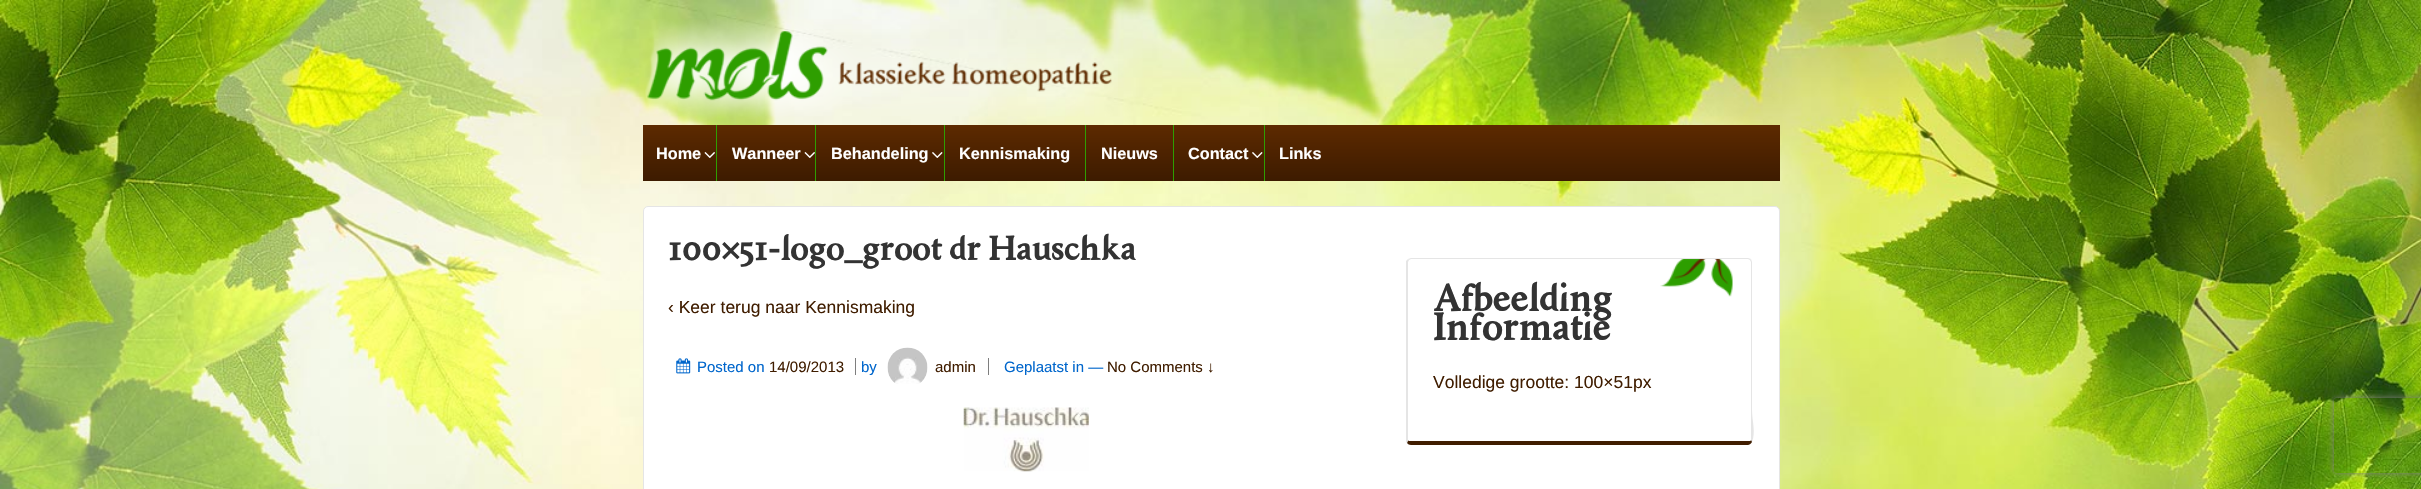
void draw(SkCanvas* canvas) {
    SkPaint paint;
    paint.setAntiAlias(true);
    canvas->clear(0xFFFFFFFF);
    canvas->drawImageRect(SkImages::DeferredFromEncodedData(SkData::MakeFromFileName("img1.png")), SkRect::MakeXYWH(0, 0, 2421, 489), SkSamplingOptions());
    canvas->drawImageRect(SkImages::DeferredFromEncodedData(SkData::MakeFromFileName("img2.png")), SkRect::MakeXYWH(645, 11, 473, 112), SkSamplingOptions());
    {
        const SkColor colors[] = {0xFF5D2A00, 0xFF3D1B00};
        const float stops[] = {0, 1};
        const SkPoint ends[] = {{1211, 125}, {1211, 181}};
        paint.setShader(SkGradientShader::MakeLinear(ends, colors, stops, 2, SkTileMode::kClamp));
        paint.setAlpha(255);
    }
    canvas->drawRect(SkRect::MakeXYWH(643, 125, 1137, 56), paint);
    SkFont font1(fontMgr->matchFamilyStyle("Liberation Sans", SkFontStyle::Bold()), 16.25f);
    font1.setSubpixel(true);
    paint.setShader(nullptr);
    paint.setColor(0xFFFFFFFF);
    canvas->drawString("Home", 656, 159, font1, paint);
    canvas->drawImageRect(SkImages::DeferredFromEncodedData(SkData::MakeFromFileName("img3.png")), SkRect::MakeXYWH(704, 152, 11, 6), SkSamplingOptions());
    paint.setColor(0xFF2E9E00);
    canvas->drawRect(SkRect::MakeXYWH(716, 125, 1, 56), paint);
    paint.setColor(0xFFFFFFFF);
    canvas->drawString("Wanneer", 732, 159, font1, paint);
    canvas->drawImageRect(SkImages::DeferredFromEncodedData(SkData::MakeFromFileName("img3.png")), SkRect::MakeXYWH(804, 152, 11, 6), SkSamplingOptions());
    paint.setColor(0xFF2E9E00);
    canvas->drawRect(SkRect::MakeXYWH(815, 125, 1, 56), paint);
    paint.setColor(0xFFFFFFFF);
    canvas->drawString("Behandeling", 831, 159, font1, paint);
    canvas->drawImageRect(SkImages::DeferredFromEncodedData(SkData::MakeFromFileName("img4.png")), SkRect::MakeXYWH(932, 152, 11, 6), SkSamplingOptions());
    paint.setColor(0xFF2E9E00);
    canvas->drawRect(SkRect::MakeXYWH(944, 125, 1, 56), paint);
    paint.setColor(0xFFFFFFFF);
    canvas->drawString("Kennismaking", 959, 159, font1, paint);
    paint.setColor(0xFF2E9E00);
    canvas->drawRect(SkRect::MakeXYWH(1085, 125, 1, 56), paint);
    paint.setColor(0xFFFFFFFF);
    canvas->drawString("Nieuws", 1101, 159, font1, paint);
    paint.setColor(0xFF2E9E00);
    canvas->drawRect(SkRect::MakeXYWH(1173, 125, 1, 56), paint);
    paint.setColor(0xFFFFFFFF);
    canvas->drawString("Contact", 1188, 159, font1, paint);
    canvas->drawImageRect(SkImages::DeferredFromEncodedData(SkData::MakeFromFileName("img4.png")), SkRect::MakeXYWH(1252, 152, 11, 6), SkSamplingOptions());
    paint.setColor(0xFF2E9E00);
    canvas->drawRect(SkRect::MakeXYWH(1264, 125, 1, 56), paint);
    paint.setColor(0xFFFFFFFF);
    canvas->drawString("Links", 1279, 159, font1, paint);
    canvas->drawRoundRect(SkRect::MakeXYWH(643.5f, 206.5f, 1136, 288), 4.5f, 4.5f, paint);
    paint.setStyle(SkPaint::kStroke_Style);
    paint.setStrokeWidth(1);
    paint.setColor(0xFFE5E5E5);
    canvas->drawRoundRect(SkRect::MakeXYWH(643.5f, 206.5f, 1136, 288), 4.5f, 4.5f, paint);
    SkFont font2(fontMgr->matchFamilyStyle("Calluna", SkFontStyle::Bold()), 35);
    font2.setSubpixel(true);
    paint.setStyle(SkPaint::kFill_Style);
    paint.setColor(0xFF333333);
    canvas->drawString("100×51-logo_groot dr Hauschka", 668, 260, font2, paint);
    SkFont font3(fontMgr->matchFamilyStyle("Liberation Sans", SkFontStyle::Normal()), 17.5f);
    font3.setSubpixel(true);
    paint.setColor(0xFF401D00);
    canvas->drawString("‹ Keer terug naar Kennismaking", 668, 313, font3, paint);
    canvas->drawImageRect(SkImages::DeferredFromEncodedData(SkData::MakeFromFileName("img5.png")), SkRect::MakeXYWH(676, 358, 15, 16), SkSamplingOptions());
    SkFont font4(fontMgr->matchFamilyStyle("Liberation Sans", SkFontStyle::Normal()), 15);
    font4.setSubpixel(true);
    paint.setColor(0xFF0066CC);
    canvas->drawString("Posted on", 697, 372, font4, paint);
    paint.setColor(0xFF401D00);
    canvas->drawString("14/09/2013", 769, 372, font4, paint);
    paint.setColor(0xFF7E7E7E);
    canvas->drawRect(SkRect::MakeXYWH(855, 358, 1, 17), paint);
    paint.setColor(0xFF0066CC);
    canvas->drawString("by", 861, 372, font4, paint);
    canvas->drawImageRect(SkImages::DeferredFromEncodedData(SkData::MakeFromFileName("img6.png")), SkRect::MakeXYWH(887, 347, 41, 37), SkSamplingOptions());
    paint.setColor(0xFF401D00);
    canvas->drawString("admin", 935, 372, font4, paint);
    paint.setColor(0xFF7E7E7E);
    canvas->drawRect(SkRect::MakeXYWH(988, 358, 1, 17), paint);
    paint.setColor(0xFF0066CC);
    canvas->drawString("Geplaatst in —", 1004, 372, font4, paint);
    paint.setColor(0xFF401D00);
    canvas->drawString("No Comments ↓", 1107, 372, font4, paint);
    canvas->drawImageRect(SkImages::DeferredFromEncodedData(SkData::MakeFromFileName("img7.png")), SkRect::MakeXYWH(963, 407, 126, 65), SkSamplingOptions());
    canvas->drawImageRect(SkImages::DeferredFromEncodedData(SkData::MakeFromFileName("img8.png")), SkRect::MakeXYWH(1660, 259, 73, 38), SkSamplingOptions());
    paint.setColor(0xFFE5E5E5);
    canvas->drawPath(SkPathBuilder().moveTo(1411, 258).lineTo(1408, 259).lineTo(1409, 260).lineTo(1411, 259).lineTo(1748, 259).lineTo(1750, 260).lineTo(1751, 259).lineTo(1748, 258).close().detach(), paint);
    canvas->drawPath(SkPathBuilder().moveTo(1752, 442).cubicTo(1756, 432, 1752, 421, 1752, 410).lineTo(1752, 262).lineTo(1751, 259).lineTo(1750, 260).lineTo(1751, 262).lineTo(1751, 440).close().detach(), paint);
    paint.setColor(0xFF401D00);
    canvas->drawPath(SkPathBuilder().moveTo(1411, 445).lineTo(1748, 445).cubicTo(1749, 445, 1751, 444, 1752, 442).lineTo(1751, 440).cubicTo(1751, 441, 1750, 441, 1748, 441).lineTo(1411, 441).cubicTo(1409, 441, 1408, 441, 1408, 440).lineTo(1407, 443).cubicTo(1408, 444, 1409, 445, 1411, 445).close().detach(), paint);
    paint.setColor(0xFFE5E5E5);
    canvas->drawPath(SkPathBuilder().moveTo(1406, 261).lineTo(1408, 259).lineTo(1409, 260).lineTo(1408, 262).lineTo(1408, 440).lineTo(1407, 443).lineTo(1406, 442).close().detach(), paint);
    SkFont font5(fontMgr->matchFamilyStyle("Calluna", SkFontStyle::Bold()), 39.5f);
    font5.setSubpixel(true);
    paint.setColor(0xFF333333);
    canvas->drawString("Afbeelding", 1433, 311, font5, paint);
    canvas->drawString("Informatie", 1433, 340, font5, paint);
    paint.setColor(0xFF401D00);
    canvas->drawString("Volledige grootte: 100×51px", 1433, 388, font3, paint);
    canvas->save();
    canvas->clipPath(SkPathBuilder(SkPathFillType::kEvenOdd).moveTo(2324, 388).lineTo(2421, 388).lineTo(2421, 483).lineTo(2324, 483).close().moveTo(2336.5f, 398).lineTo(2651.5f, 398).cubicTo(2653, 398, 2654, 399, 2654, 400.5f).lineTo(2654, 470.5f).cubicTo(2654, 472, 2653, 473, 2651.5f, 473).lineTo(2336.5f, 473).cubicTo(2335, 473, 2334, 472, 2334, 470.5f).lineTo(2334, 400.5f).cubicTo(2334, 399, 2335, 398, 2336.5f, 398).close().detach(), true);
    paint.setColor(0xFF808080);
    paint.setMaskFilter(SkMaskFilter::MakeBlur(kNormal_SkBlurStyle, 3));
    canvas->drawRoundRect(SkRect::MakeXYWH(2334, 398, 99, 75), 2.5f, 2.5f, paint);
    paint.setMaskFilter(nullptr);
    canvas->restore();
}
